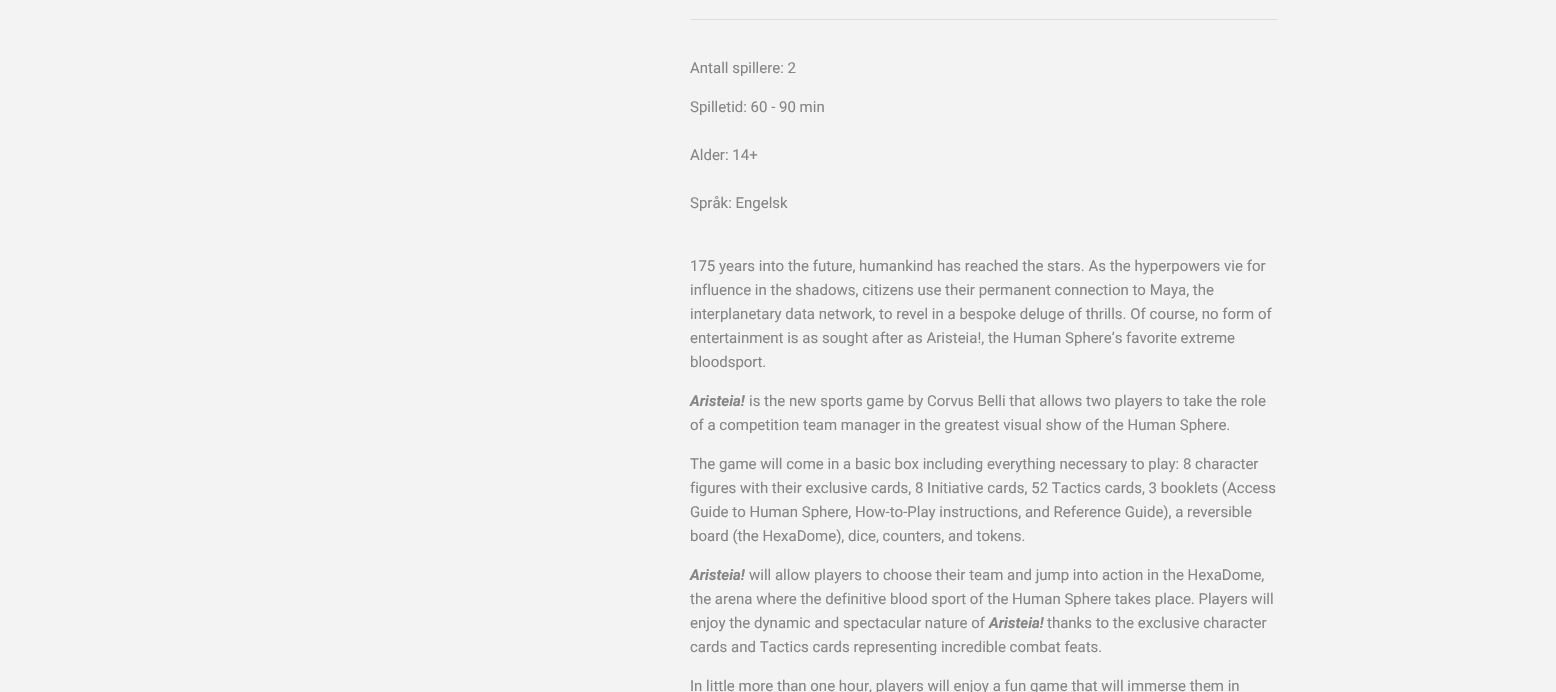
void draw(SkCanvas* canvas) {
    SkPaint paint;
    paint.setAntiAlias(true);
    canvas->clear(0xFFF3F3F3);
    paint.setColor(0xFFDEDEDE);
    canvas->drawRect(SkRect::MakeXYWH(690, 19, 588, 1), paint);
    SkFont font1(fontMgr->matchFamilyStyle("Roboto", SkFontStyle::Normal()), 15);
    font1.setSubpixel(true);
    paint.setColor(0xFF858585);
    canvas->drawString("Antall spillere: 2", 690, 73, font1, paint);
    canvas->drawString("Spilletid: 60 - 90 min", 690, 112, font1, paint);
    canvas->drawString("Alder: 14+", 690, 160, font1, paint);
    canvas->drawString("Språk: Engelsk", 690, 208, font1, paint);
    canvas->drawString("175 years into the future, humankind has reached the stars. As the hyperpowers vie for", 690, 271, font1, paint);
    canvas->drawString("influence in the shadows, citizens use their permanent connection to Maya, the", 690, 295, font1, paint);
    canvas->drawString("interplanetary data network, to revel in a bespoke deluge of thrills. Of course, no form of", 690, 319, font1, paint);
    canvas->drawString("entertainment is as sought after as Aristeia!, the Human Sphere’s favorite extreme", 690, 343, font1, paint);
    canvas->drawString("bloodsport.", 690, 367, font1, paint);
    SkFont font2(fontMgr->matchFamilyStyle("Roboto", SkFontStyle::BoldItalic()), 15);
    font2.setSubpixel(true);
    canvas->drawString("Aristeia!", 690, 406, font2, paint);
    canvas->drawString("is the new sports game by Corvus Belli that allows two players to take the role", 749, 406, font1, paint);
    canvas->drawString("of a competition team manager in the greatest visual show of the Human Sphere.", 690, 430, font1, paint);
    canvas->drawString("The game will come in a basic box including everything necessary to play: 8 character", 690, 469, font1, paint);
    canvas->drawString("figures with their exclusive cards, 8 Initiative cards, 52 Tactics cards, 3 booklets (Access", 690, 493, font1, paint);
    canvas->drawString("Guide to Human Sphere, How-to-Play instructions, and Reference Guide), a reversible", 690, 517, font1, paint);
    canvas->drawString("board (the HexaDome), dice, counters, and tokens.", 690, 541, font1, paint);
    canvas->drawString("Aristeia!", 690, 580, font2, paint);
    canvas->drawString("will allow players to choose their team and jump into action in the HexaDome,", 749, 580, font1, paint);
    canvas->drawString("the arena where the definitive blood sport of the Human Sphere takes place. Players will", 690, 604, font1, paint);
    canvas->drawString("enjoy the dynamic and spectacular nature of", 690, 628, font1, paint);
    canvas->drawString("Aristeia!", 989, 628, font2, paint);
    canvas->drawString("thanks to the exclusive character", 1047, 628, font1, paint);
    canvas->drawString("cards and Tactics cards representing incredible combat feats.", 690, 652, font1, paint);
    canvas->drawString("In little more than one hour, players will enjoy a fun game that will immerse them in", 690, 691, font1, paint);
}
